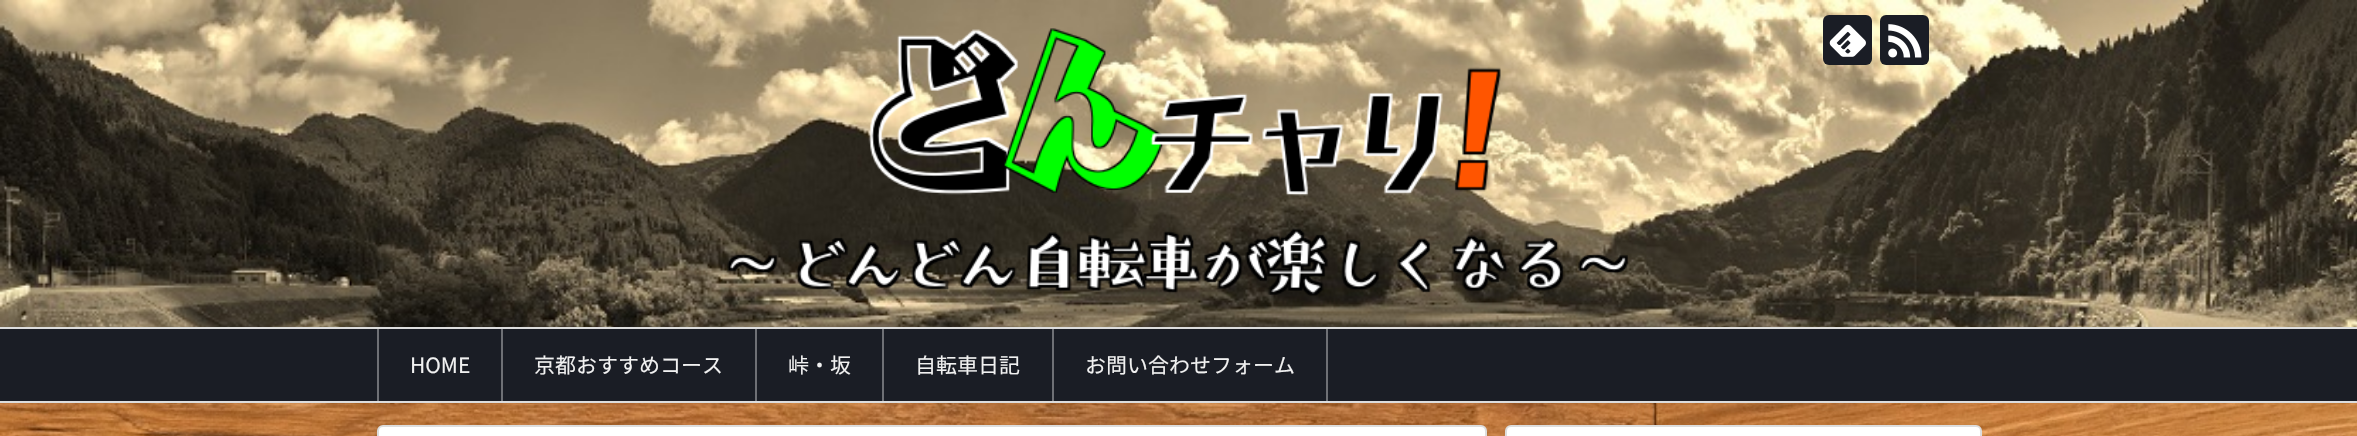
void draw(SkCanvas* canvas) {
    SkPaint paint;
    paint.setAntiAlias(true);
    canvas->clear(0xFFFFFFFF);
    canvas->drawImageRect(SkImages::DeferredFromEncodedData(SkData::MakeFromFileName("img1.png")), SkRect::MakeXYWH(0, 403, 2357, 33), SkSamplingOptions());
    canvas->drawImageRect(SkImages::DeferredFromEncodedData(SkData::MakeFromFileName("img2.png")), SkRect::MakeXYWH(0, 0, 2357, 327), SkSamplingOptions());
    canvas->drawImageRect(SkImages::DeferredFromEncodedData(SkData::MakeFromFileName("img3.png")), SkRect::MakeXYWH(727, 28, 901, 268), SkSamplingOptions());
    paint.setColor(0xFF1A1D25);
    canvas->drawRoundRect(SkRect::MakeXYWH(1823, 15, 49, 50), 6, 6, paint);
    canvas->drawImageRect(SkImages::DeferredFromEncodedData(SkData::MakeFromFileName("img4.png")), SkRect::MakeXYWH(1829, 24, 37, 33), SkSamplingOptions());
    canvas->drawRoundRect(SkRect::MakeXYWH(1880, 15, 49, 50), 6, 6, paint);
    canvas->drawImageRect(SkImages::DeferredFromEncodedData(SkData::MakeFromFileName("img5.png")), SkRect::MakeXYWH(1888, 24, 34, 34), SkSamplingOptions());
    canvas->drawRect(SkRect::MakeXYWH(0, 329, 2357, 72), paint);
    paint.setColor(0xFFDDDDDD);
    canvas->drawRect(SkRect::MakeXYWH(0, 327, 2357, 2), paint);
    canvas->drawRect(SkRect::MakeXYWH(0, 401, 2357, 2), paint);
    paint.setColor(0xFF6E7075);
    canvas->drawRect(SkRect::MakeXYWH(377, 329, 2, 72), paint);
    canvas->drawRect(SkRect::MakeXYWH(501, 329, 2, 72), paint);
    SkFont font1(fontMgr->matchFamilyStyle("Noto Sans JP", SkFontStyle::Normal()), 21);
    font1.setSubpixel(true);
    paint.setColor(0xFFF1F1F1);
    canvas->drawString("HOME", 410, 373, font1, paint);
    paint.setColor(0xFF6E7075);
    canvas->drawRect(SkRect::MakeXYWH(755, 329, 2, 72), paint);
    paint.setColor(0xFFF1F1F1);
    canvas->drawString("京都おすすめコース", 534, 373, font1, paint);
    paint.setColor(0xFF6E7075);
    canvas->drawRect(SkRect::MakeXYWH(882, 329, 2, 72), paint);
    paint.setColor(0xFFF1F1F1);
    canvas->drawString("峠・坂", 788, 373, font1, paint);
    paint.setColor(0xFF6E7075);
    canvas->drawRect(SkRect::MakeXYWH(1052, 329, 2, 72), paint);
    paint.setColor(0xFFF1F1F1);
    canvas->drawString("自転車日記", 915, 373, font1, paint);
    paint.setColor(0xFF6E7075);
    canvas->drawRect(SkRect::MakeXYWH(1326, 329, 2, 72), paint);
    paint.setColor(0xFFF1F1F1);
    canvas->drawString("お問い合わせフォーム", 1085, 373, font1, paint);
    paint.setColor(0xFFFFFFFF);
    canvas->drawRoundRect(SkRect::MakeXYWH(378, 426, 1108, 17), 5, 5, paint);
    paint.setStyle(SkPaint::kStroke_Style);
    paint.setStrokeWidth(2);
    paint.setColor(0xFFDDDDDD);
    canvas->drawRoundRect(SkRect::MakeXYWH(378, 426, 1108, 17), 5, 5, paint);
    paint.setStyle(SkPaint::kFill_Style);
    paint.setColor(0xFFFFFFFF);
    canvas->drawRoundRect(SkRect::MakeXYWH(1506, 426, 475, 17), 5, 5, paint);
    paint.setStyle(SkPaint::kStroke_Style);
    paint.setColor(0xFFDDDDDD);
    canvas->drawRoundRect(SkRect::MakeXYWH(1506, 426, 475, 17), 5, 5, paint);
}
